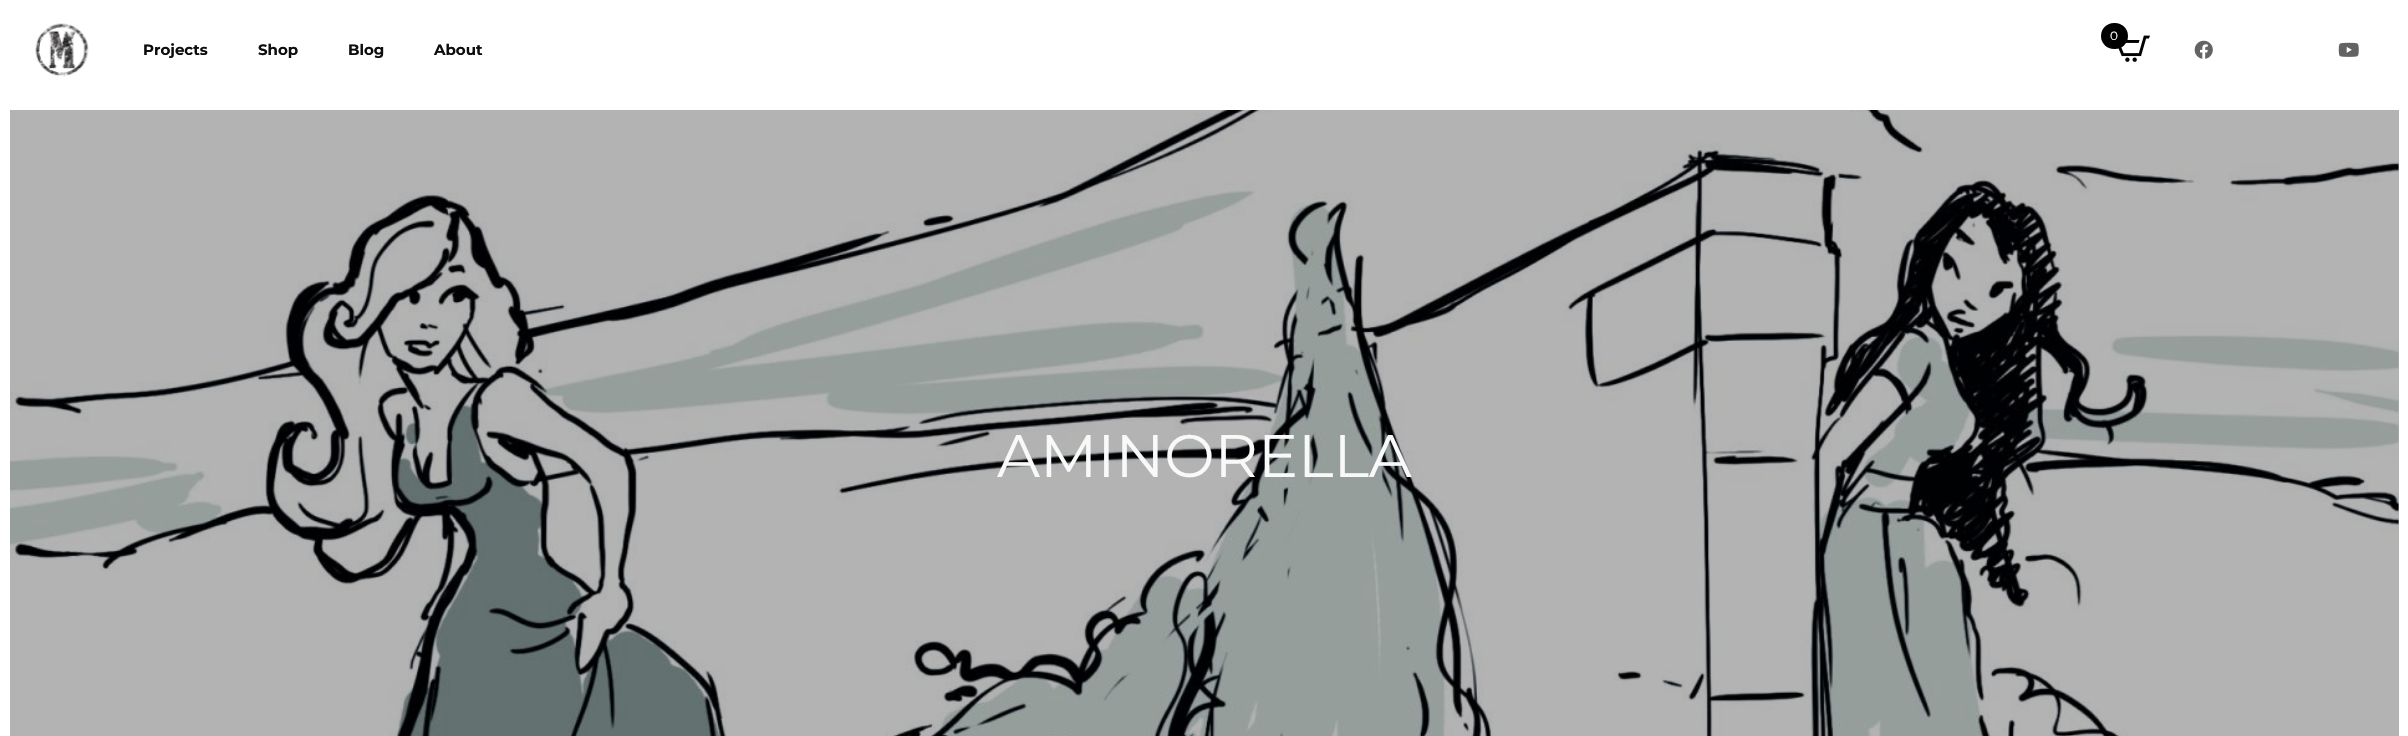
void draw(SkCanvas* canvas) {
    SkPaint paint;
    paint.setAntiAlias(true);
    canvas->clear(0xFFFFFFFF);
    paint.setColor(0xFFB3B3B3);
    canvas->drawRect(SkRect::MakeXYWH(2398, 110, 1, 626), paint);
    canvas->drawImageRect(SkImages::DeferredFromEncodedData(SkData::MakeFromFileName("img1.png")), SkRect::MakeXYWH(35, 23, 54, 54), SkSamplingOptions());
    canvas->drawImageRect(SkImages::DeferredFromEncodedData(SkData::MakeFromFileName("img2.png")), SkRect::MakeXYWH(2118, 35, 32, 27), SkSamplingOptions());
    paint.setColor(0xFF000000);
    canvas->drawRoundRect(SkRect::MakeXYWH(2101, 23, 27, 26), 13, 13, paint);
    SkFont font1(fontMgr->matchFamilyStyle("Montserrat", SkFontStyle::Normal()), 12);
    font1.setSubpixel(true);
    paint.setColor(0xFFFFFFFF);
    canvas->drawString("0", 2110, 40, font1, paint);
    canvas->drawImageRect(SkImages::DeferredFromEncodedData(SkData::MakeFromFileName("img3.png")), SkRect::MakeXYWH(2194, 40, 19, 19), SkSamplingOptions());
    canvas->drawImageRect(SkImages::DeferredFromEncodedData(SkData::MakeFromFileName("img4.png")), SkRect::MakeXYWH(2338, 42, 21, 15), SkSamplingOptions());
    SkFont font2(fontMgr->matchFamilyStyle("Montserrat", SkFontStyle::Bold()), 15);
    font2.setSubpixel(true);
    paint.setColor(0xFF0D0D0D);
    canvas->drawString("Projects", 143, 55, font2, paint);
    canvas->drawString("Shop", 258, 55, font2, paint);
    canvas->drawString("Blog", 348, 55, font2, paint);
    canvas->drawString("About", 434, 55, font2, paint);
    canvas->drawImageRect(SkImages::DeferredFromEncodedData(SkData::MakeFromFileName("img5.png")), SkRect::MakeXYWH(10, 110, 2389, 626), SkSamplingOptions());
    SkFont font3(fontMgr->matchFamilyStyle("Montserrat", SkFontStyle::Normal()), 60);
    font3.setSubpixel(true);
    paint.setColor(0xFFF9F9F9);
    canvas->drawString("AMINORELLA", 997, 477, font3, paint);
}
